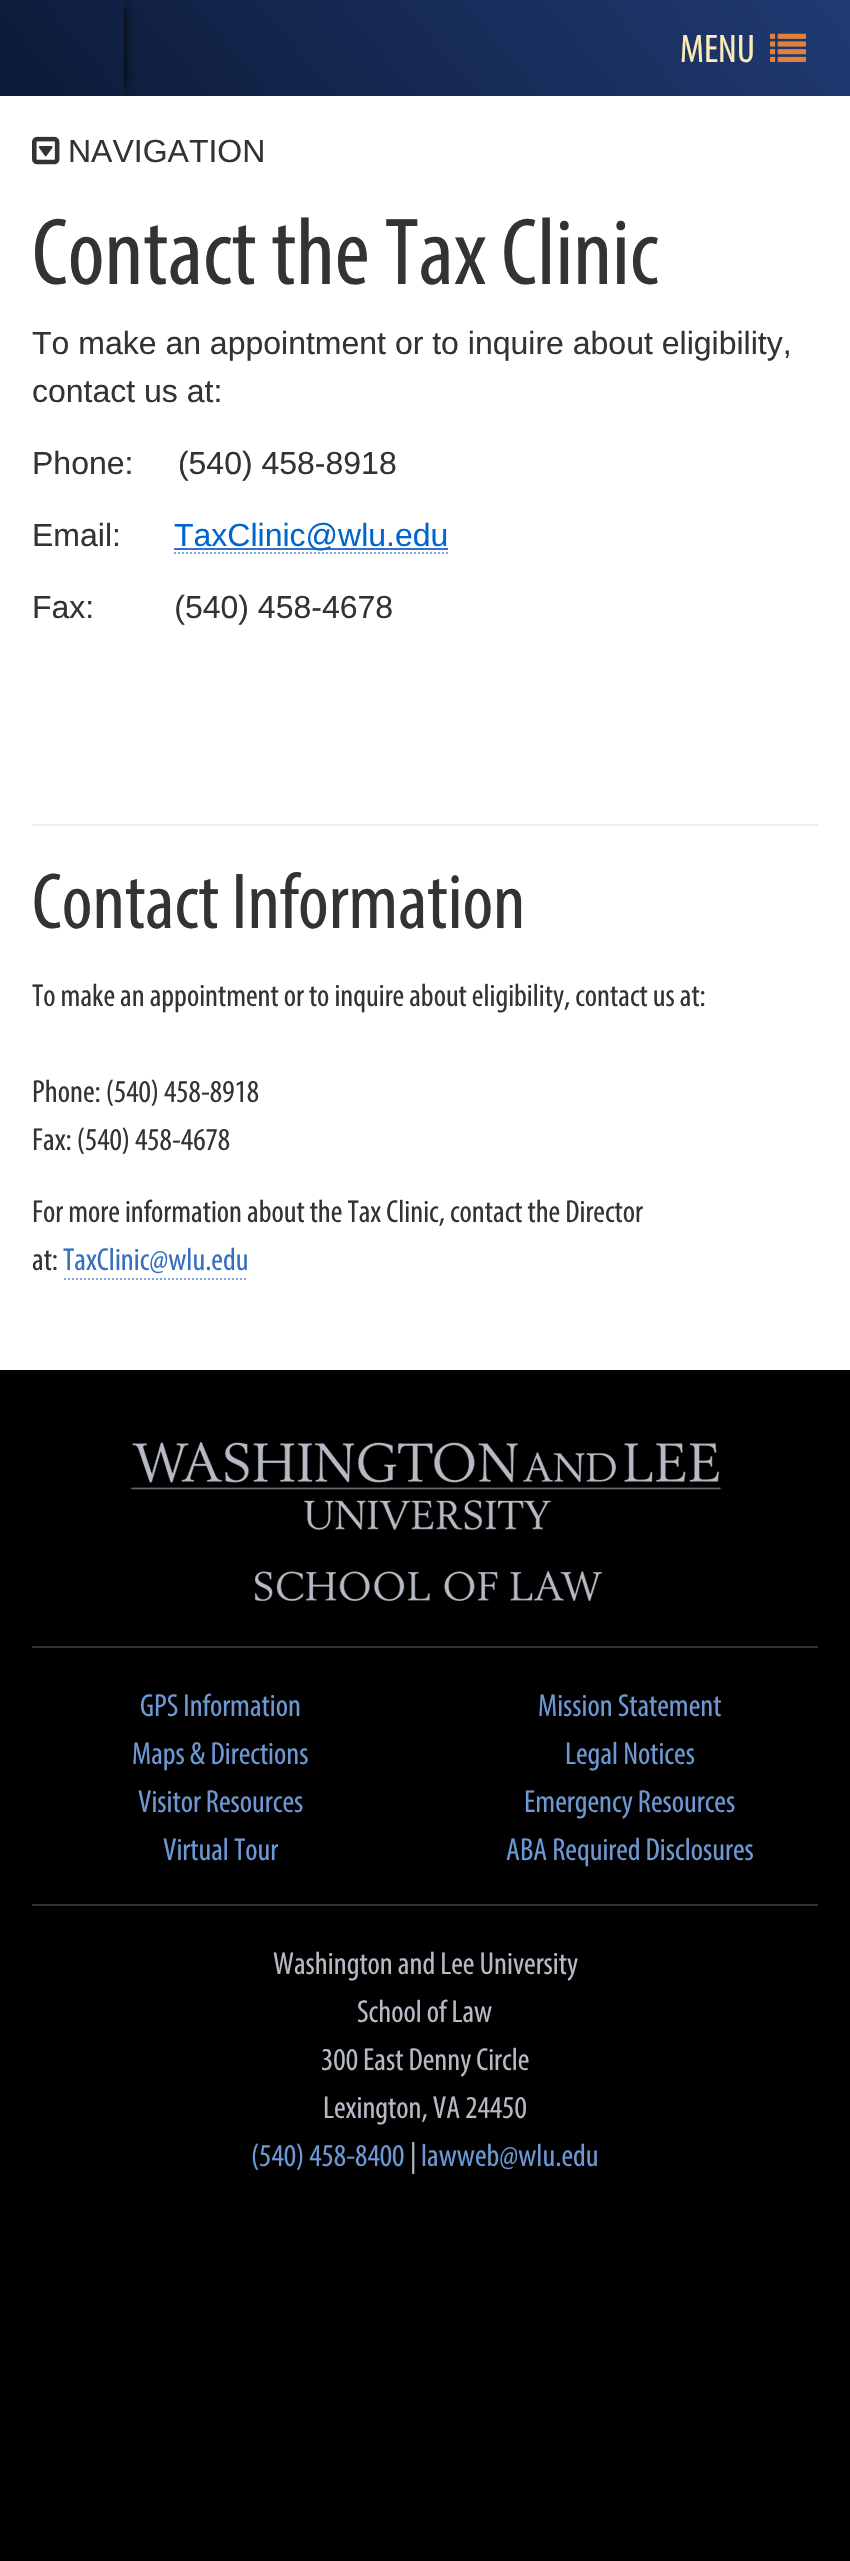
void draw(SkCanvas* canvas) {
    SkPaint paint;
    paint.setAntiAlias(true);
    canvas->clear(0xFF000000);
    {
        const SkColor colors[] = {0xFF0D1A37, 0xFF203A73};
        const float stops[] = {0, 1};
        const SkPoint ends[] = {{152, 277}, {698, -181}};
        paint.setShader(SkGradientShader::MakeLinear(ends, colors, stops, 2, SkTileMode::kClamp));
        paint.setAlpha(255);
    }
    canvas->drawRect(SkRect::MakeXYWH(0, 0, 850, 96), paint);
    paint.setShader(nullptr);
    paint.setColor(0xFFFFFFFF);
    canvas->drawRect(SkRect::MakeXYWH(0, 96, 850, 1274), paint);
    canvas->save();
    canvas->clipRect(SkRect::MakeXYWH(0, 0, 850, 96));
    canvas->clipRect(SkRect::MakeXYWH(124, 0, 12, 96));
    paint.setColor(0xFF000000);
    paint.setMaskFilter(SkMaskFilter::MakeBlur(kNormal_SkBlurStyle, 6));
    canvas->drawRect(SkRect::MakeXYWH(12, 6, 112, 84), paint);
    paint.setMaskFilter(nullptr);
    canvas->restore();
    SkFont font1(fontMgr->matchFamilyStyle("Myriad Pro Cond", SkFontStyle::Normal()), 40);
    font1.setSubpixel(true);
    paint.setColor(0xFFFDEAB8);
    canvas->drawString("MENU", 680, 62, font1, paint);
    canvas->drawImageRect(SkImages::DeferredFromEncodedData(SkData::MakeFromFileName("img1.png")), SkRect::MakeXYWH(770, 33, 36, 29), SkSamplingOptions());
    canvas->drawImageRect(SkImages::DeferredFromEncodedData(SkData::MakeFromFileName("img2.png")), SkRect::MakeXYWH(32, 136, 28, 29), SkSamplingOptions());
    SkFont font2(fontMgr->matchFamilyStyle("Liberation Sans", SkFontStyle::Normal()), 32);
    font2.setSubpixel(true);
    paint.setColor(0xFF333333);
    canvas->drawString("NAVIGATION", 68, 162, font2, paint);
    SkFont font3(fontMgr->matchFamilyStyle("Myriad Pro Cond", SkFontStyle::Normal()), 96);
    font3.setSubpixel(true);
    canvas->drawString("Contact the Tax Clinic", 32, 284, font3, paint);
    canvas->drawString("To make an appointment or to inquire about eligibility,", 32, 354, font2, paint);
    canvas->drawString("contact us at:", 32, 402, font2, paint);
    canvas->drawString("Phone:     (540) 458-8918", 32, 474, font2, paint);
    canvas->drawString("Email:", 32, 546, font2, paint);
    paint.setColor(0xFF376FBD);
    canvas->drawRect(SkRect::MakeXYWH(174, 548, 274, 2), paint);
    paint.setColor(0xFF0066CC);
    canvas->drawString("TaxClinic@wlu.edu", 174, 546, font2, paint);
    paint.setStyle(SkPaint::kStroke_Style);
    paint.setStrokeWidth(2);
    paint.setColor(0xFF80A6DA);
    paint.setPathEffect(SkDashPathEffect::Make({{2, 2}}, 0));
    canvas->drawPath(SkPathBuilder().moveTo(174, 553).lineTo(448, 553).detach(), paint);
    paint.setPathEffect(nullptr);
    paint.setStyle(SkPaint::kFill_Style);
    paint.setColor(0xFF333333);
    canvas->drawString("Fax:         (540) 458-4678", 32, 618, font2, paint);
    paint.setColor(0xFFEAEEED);
    canvas->drawRect(SkRect::MakeXYWH(32, 824, 786, 2), paint);
    SkFont font4(fontMgr->matchFamilyStyle("Myriad Pro Cond", SkFontStyle::Normal()), 80);
    font4.setSubpixel(true);
    paint.setColor(0xFF333333);
    canvas->drawString("Contact Information", 32, 928, font4, paint);
    SkFont font5(fontMgr->matchFamilyStyle("Myriad Pro Cond", SkFontStyle::Normal()), 32);
    font5.setSubpixel(true);
    canvas->drawString("To make an appointment or to inquire about eligibility, contact us at:", 32, 1006, font5, paint);
    canvas->drawString("Phone: (540) 458-8918", 32, 1102, font5, paint);
    canvas->drawString("Fax: (540) 458-4678", 32, 1150, font5, paint);
    canvas->drawString("For more information about the Tax Clinic, contact the Director", 32, 1222, font5, paint);
    canvas->drawString("at:", 32, 1270, font5, paint);
    paint.setColor(0xFF376FBD);
    canvas->drawString("TaxClinic@wlu.edu", 63, 1270, font5, paint);
    paint.setStyle(SkPaint::kStroke_Style);
    paint.setColor(0xFF80A6DA);
    paint.setPathEffect(SkDashPathEffect::Make({{2, 2}}, 0));
    canvas->drawPath(SkPathBuilder().moveTo(64, 1279).lineTo(248, 1279).detach(), paint);
    paint.setPathEffect(nullptr);
    paint.setStyle(SkPaint::kFill_Style);
    paint.setColor(0xFF333333);
    canvas->drawRect(SkRect::MakeXYWH(32, 1646, 786, 2), paint);
    canvas->drawImageRect(SkImages::DeferredFromEncodedData(SkData::MakeFromFileName("img3.png")), SkRect::MakeXYWH(130, 1442, 592, 159), SkSamplingOptions());
    canvas->drawRect(SkRect::MakeXYWH(32, 1904, 786, 2), paint);
    paint.setColor(0xFF6C98D4);
    canvas->drawString("GPS Information", 140, 1716, font5, paint);
    canvas->drawString("Mission Statement", 538, 1716, font5, paint);
    canvas->drawString("Maps & Directions", 132, 1764, font5, paint);
    canvas->drawString("Legal Notices", 565, 1764, font5, paint);
    canvas->drawString("Visitor Resources", 138, 1812, font5, paint);
    canvas->drawString("Emergency Resources", 524, 1812, font5, paint);
    canvas->drawString("Virtual Tour", 163, 1860, font5, paint);
    canvas->drawString("ABA Required Disclosures", 506, 1860, font5, paint);
    paint.setColor(0xFFB5BAC4);
    canvas->drawString("Washington and Lee University", 273, 1974, font5, paint);
    canvas->drawString("School of Law", 357, 2022, font5, paint);
    canvas->drawString("300 East Denny Circle", 321, 2070, font5, paint);
    canvas->drawString("Lexington, VA 24450", 323, 2118, font5, paint);
    paint.setColor(0xFF6C98D4);
    canvas->drawString("(540) 458-8400", 251, 2166, font5, paint);
    paint.setColor(0xFFB5BAC4);
    canvas->drawString("|", 410, 2166, font5, paint);
    paint.setColor(0xFF6C98D4);
    canvas->drawString("lawweb@wlu.edu", 421, 2166, font5, paint);
}
